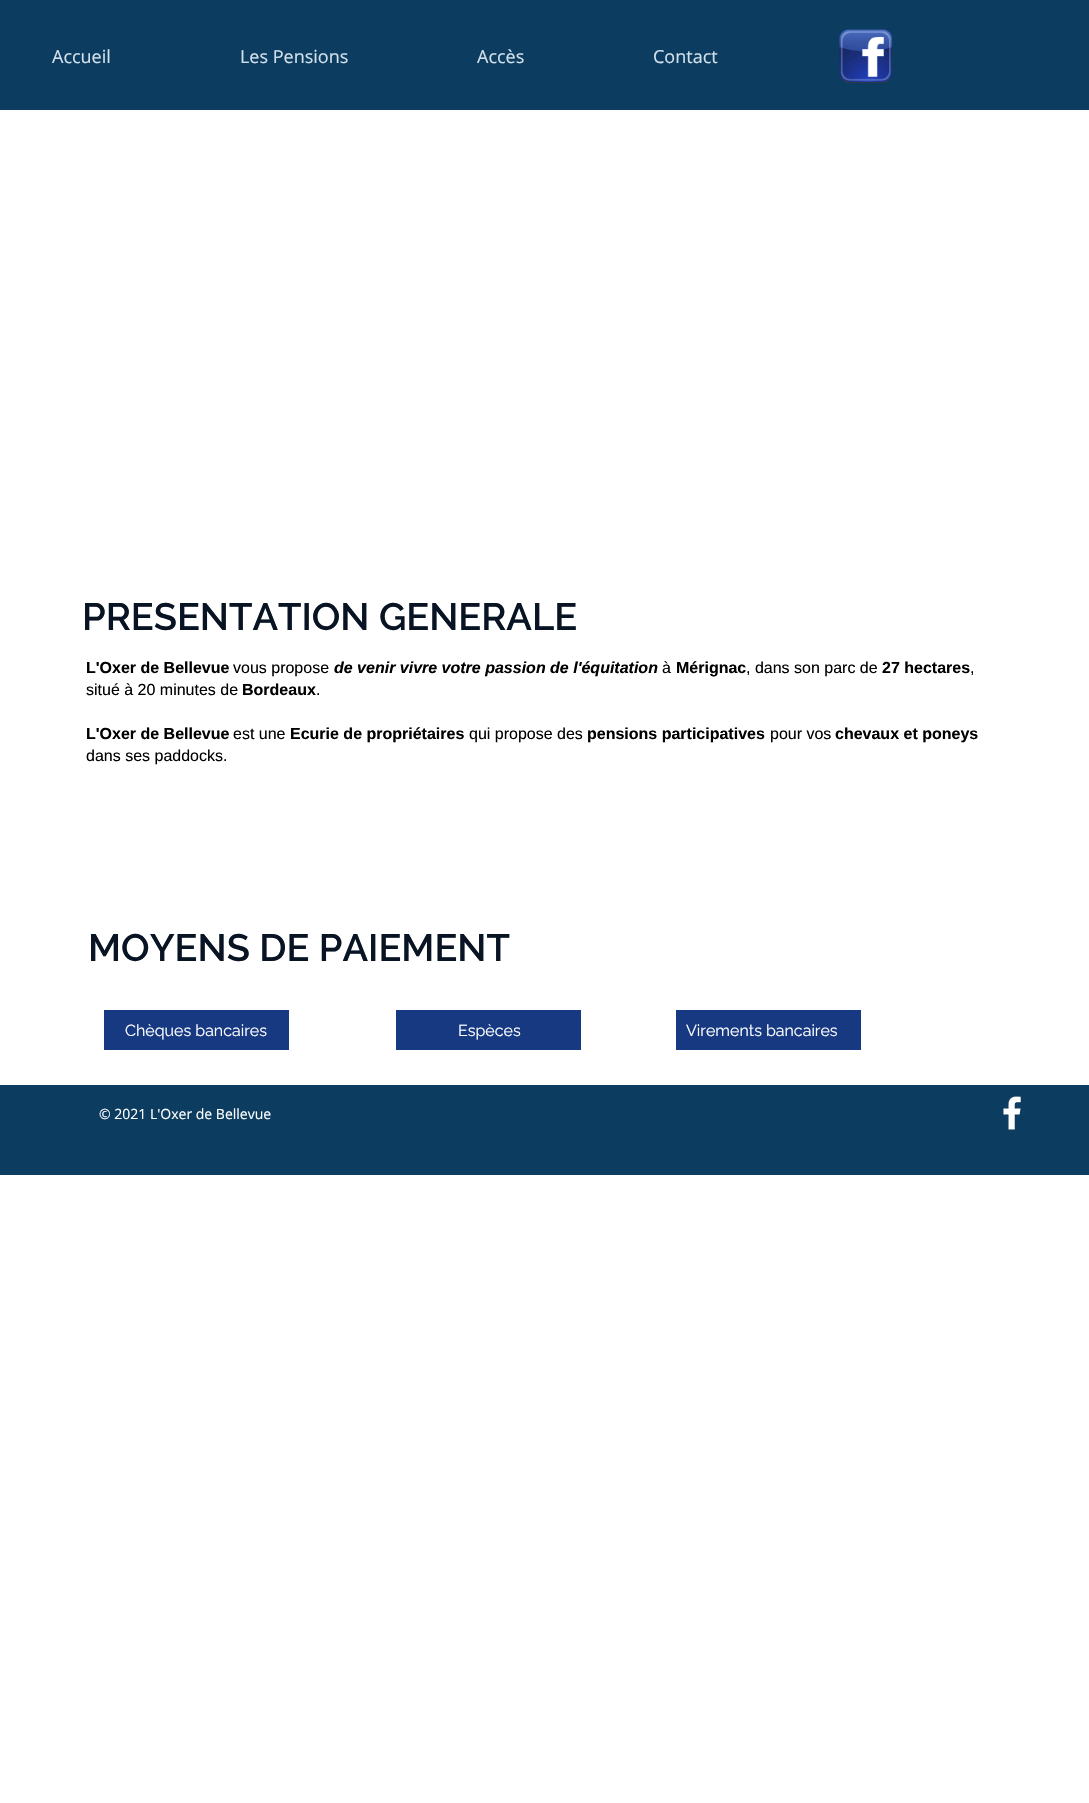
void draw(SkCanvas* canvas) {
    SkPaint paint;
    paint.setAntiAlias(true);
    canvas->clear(0xFFFFFFFF);
    paint.setColor(0xFF0C3C60);
    canvas->drawRect(SkRect::MakeXYWH(0, 0, 1089, 110), paint);
    SkFont font1(fontMgr->matchFamilyStyle("Open Sans", SkFontStyle::Normal()), 18);
    font1.setSubpixel(true);
    paint.setColor(0xFFD1E0EB);
    canvas->drawString("Accueil", 52, 63, font1, paint);
    canvas->drawString("Les Pensions", 240, 63, font1, paint);
    canvas->drawString("Accès", 477, 63, font1, paint);
    canvas->drawString("Contact", 653, 63, font1, paint);
    canvas->drawImageRect(SkImages::DeferredFromEncodedData(SkData::MakeFromFileName("img1.png")), SkRect::MakeXYWH(839, 29, 54, 54), SkSamplingOptions());
    SkFont font2(fontMgr->matchFamilyStyle("Raleway", SkFontStyle(600, SkFontStyle::kNormal_Width, SkFontStyle::kUpright_Slant)), 38);
    font2.setSubpixel(true);
    paint.setColor(0xFF081423);
    canvas->drawString("PRESENTATION GENERALE", 82, 630, font2, paint);
    SkFont font3(fontMgr->matchFamilyStyle("Liberation Sans", SkFontStyle::Bold()), 16);
    font3.setSubpixel(true);
    paint.setColor(0xFF000000);
    canvas->drawString("L'Oxer de Bellevue", 86, 673, font3, paint);
    SkFont font4(fontMgr->matchFamilyStyle("Liberation Sans", SkFontStyle::Normal()), 16);
    font4.setSubpixel(true);
    canvas->drawString("vous propose", 233, 673, font4, paint);
    SkFont font5(fontMgr->matchFamilyStyle("Liberation Sans", SkFontStyle::BoldItalic()), 16);
    font5.setSubpixel(true);
    canvas->drawString("de venir vivre votre passion de l'équitation", 334, 673, font5, paint);
    canvas->drawString("à", 662, 673, font4, paint);
    canvas->drawString("Mérignac", 676, 673, font3, paint);
    canvas->drawString(", dans son parc de", 746, 673, font4, paint);
    canvas->drawString("27 hectares", 882, 673, font3, paint);
    canvas->drawString(",", 970, 673, font4, paint);
    canvas->drawString("situé à 20 minutes de", 86, 695, font4, paint);
    canvas->drawString("Bordeaux", 242, 695, font3, paint);
    canvas->drawString(".", 316, 695, font4, paint);
    canvas->drawString("L'Oxer de Bellevue", 86, 739, font3, paint);
    canvas->drawString("est une", 233, 739, font4, paint);
    canvas->drawString("Ecurie de propriétaires", 290, 739, font3, paint);
    canvas->drawString("qui propose des", 469, 739, font4, paint);
    canvas->drawString("pensions participatives", 587, 739, font3, paint);
    canvas->drawString("pour vos", 770, 739, font4, paint);
    canvas->drawString("chevaux et poneys", 835, 739, font3, paint);
    canvas->drawString("dans ses paddocks.", 86, 761, font4, paint);
    paint.setColor(0xFF081423);
    canvas->drawString("MOYENS DE PAIEMENT", 88, 961, font2, paint);
    paint.setColor(0xFF173981);
    canvas->drawRect(SkRect::MakeXYWH(104, 1010, 185, 40), paint);
    canvas->drawRect(SkRect::MakeXYWH(396, 1010, 185, 40), paint);
    canvas->drawRect(SkRect::MakeXYWH(676, 1010, 185, 40), paint);
    SkFont font6(fontMgr->matchFamilyStyle("Raleway", SkFontStyle::Normal()), 16);
    font6.setSubpixel(true);
    paint.setColor(0xFFFFFFFF);
    canvas->drawString("Chèques bancaires", 125, 1036, font6, paint);
    canvas->drawString("Espèces", 458, 1036, font6, paint);
    canvas->drawString("Virements bancaires", 686, 1036, font6, paint);
    paint.setColor(0xFF0C3C60);
    canvas->drawRect(SkRect::MakeXYWH(0, 1085, 1089, 90), paint);
    SkFont font7(fontMgr->matchFamilyStyle("Open Sans", SkFontStyle::Normal()), 14);
    font7.setSubpixel(true);
    paint.setColor(0xFFFFFFFF);
    canvas->drawString("© 2021 L'Oxer de Bellevue", 99, 1119, font7, paint);
    canvas->drawImageRect(SkImages::DeferredFromEncodedData(SkData::MakeFromFileName("img2.png")), SkRect::MakeXYWH(1003, 1096, 18, 34), SkSamplingOptions());
}
